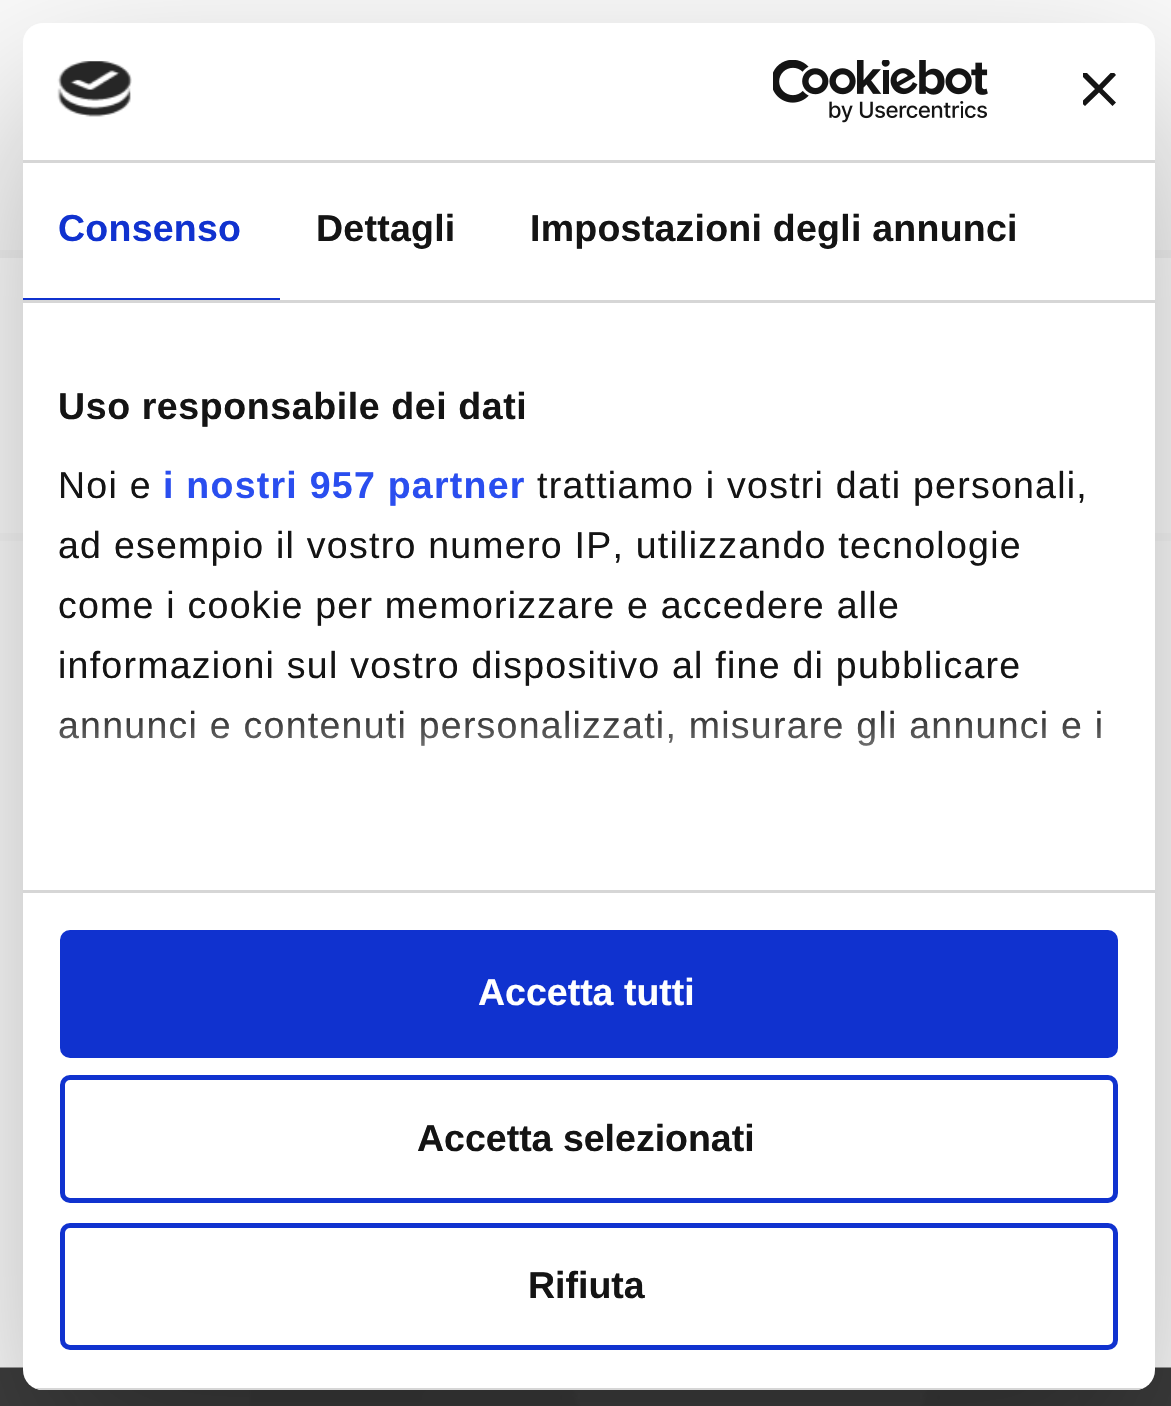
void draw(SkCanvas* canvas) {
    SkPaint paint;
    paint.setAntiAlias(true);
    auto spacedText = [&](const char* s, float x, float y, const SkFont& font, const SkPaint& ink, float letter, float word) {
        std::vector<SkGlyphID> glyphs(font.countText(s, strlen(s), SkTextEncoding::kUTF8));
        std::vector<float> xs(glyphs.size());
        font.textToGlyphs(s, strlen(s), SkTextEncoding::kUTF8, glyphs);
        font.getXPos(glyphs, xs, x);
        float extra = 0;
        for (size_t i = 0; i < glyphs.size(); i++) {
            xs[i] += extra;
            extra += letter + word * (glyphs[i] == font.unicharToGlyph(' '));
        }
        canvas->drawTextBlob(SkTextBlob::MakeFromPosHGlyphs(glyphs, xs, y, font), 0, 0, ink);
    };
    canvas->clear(0xFFFFFFFF);
    paint.setColor(0xFFFAFAFA);
    canvas->drawRect(SkRect::MakeXYWH(0, 0, 1171, 250), paint);
    paint.setColor(0xFFF5F5F5);
    canvas->drawRect(SkRect::MakeXYWH(0, 250, 1171, 8), paint);
    paint.setColor(0xFFFAFAFA);
    canvas->drawRect(SkRect::MakeXYWH(0, 533, 1171, 8), paint);
    canvas->drawImageRect(SkImages::DeferredFromEncodedData(SkData::MakeFromFileName("img1.png")), SkRect::MakeXYWH(0, 1367, 1171, 39), SkSamplingOptions());
    canvas->save();
    canvas->clipPath(SkPathBuilder(SkPathFillType::kEvenOdd).moveTo(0, 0).lineTo(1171, 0).lineTo(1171, 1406).lineTo(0, 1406).close().moveTo(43, 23).lineTo(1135, 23).cubicTo(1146, 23, 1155, 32, 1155, 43).lineTo(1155, 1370).cubicTo(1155, 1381, 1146, 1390, 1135, 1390).lineTo(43, 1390).cubicTo(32, 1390, 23, 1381, 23, 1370).lineTo(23, 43).cubicTo(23, 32, 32, 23, 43, 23).close().detach(), true);
    paint.setColor(0x4D000000);
    paint.setMaskFilter(SkMaskFilter::MakeBlur(kNormal_SkBlurStyle, 85));
    canvas->drawRoundRect(SkRect::MakeXYWH(23, 103, 1132, 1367), 20, 20, paint);
    paint.setMaskFilter(nullptr);
    canvas->restore();
    paint.setColor(0xFFFFFFFF);
    canvas->drawRoundRect(SkRect::MakeXYWH(23, 23, 1132, 1367), 20, 20, paint);
    paint.setColor(0xFFD6D6D6);
    canvas->drawRect(SkRect::MakeXYWH(23, 160, 1132, 3), paint);
    canvas->drawImageRect(SkImages::DeferredFromEncodedData(SkData::MakeFromFileName("img2.png")), SkRect::MakeXYWH(57, 61, 75, 56), SkSamplingOptions());
    canvas->drawImageRect(SkImages::DeferredFromEncodedData(SkData::MakeFromFileName("img3.png")), SkRect::MakeXYWH(773, 60, 215, 63), SkSamplingOptions());
    canvas->save();
    canvas->clipRect(SkRect::MakeXYWH(1083, 73, 35, 35));
    paint.setColor(0xFF141414);
    canvas->drawPath(SkPathBuilder().moveTo(1116, 75).lineTo(1112.5f, 71).lineTo(1099, 85).lineTo(1085, 71).lineTo(1081, 75).lineTo(1095, 89).lineTo(1081, 102.5f).lineTo(1085, 106).lineTo(1099, 92.5f).lineTo(1112.5f, 106).lineTo(1116, 102.5f).lineTo(1102.5f, 89).close().detach(), paint);
    canvas->restore();
    paint.setColor(0xFFD6D6D6);
    canvas->drawRect(SkRect::MakeXYWH(23, 300, 1132, 3), paint);
    paint.setColor(0xFF1032CF);
    canvas->drawRect(SkRect::MakeXYWH(23, 298, 257, 2), paint);
    SkFont font1(fontMgr->matchFamilyStyle("Liberation Sans", SkFontStyle::Bold()), 37.5f);
    font1.setSubpixel(true);
    spacedText("Consenso", 58, 241, font1, paint, 0.25f, 0);
    paint.setColor(0xFF141414);
    spacedText("Dettagli", 316, 241, font1, paint, 0.25f, 0);
    spacedText("Impostazioni degli annunci", 530, 241, font1, paint, 0.25f, 0);
    paint.setColor(0xFFD6D6D6);
    canvas->drawRect(SkRect::MakeXYWH(23, 890, 1132, 3), paint);
    paint.setColor(0xFF141414);
    spacedText("Uso responsabile dei dati", 58, 419, font1, paint, 0.6f, 0);
    SkFont font2(fontMgr->matchFamilyStyle("Liberation Sans", SkFontStyle::Normal()), 37.5f);
    font2.setSubpixel(true);
    spacedText("Noi e", 58, 498, font2, paint, 1.25f, 0);
    paint.setColor(0xFF2A4EEF);
    spacedText("i nostri 957 partner", 163, 498, font1, paint, 1.25f, 0);
    paint.setColor(0xFF141414);
    spacedText("trattiamo i vostri dati personali,", 537, 498, font2, paint, 1.25f, 0);
    spacedText("ad esempio il vostro numero IP, utilizzando tecnologie", 58, 558, font2, paint, 1.25f, 0);
    spacedText("come i cookie per memorizzare e accedere alle", 58, 618, font2, paint, 1.25f, 0);
    spacedText("informazioni sul vostro dispositivo al fine di pubblicare", 58, 678, font2, paint, 1.25f, 0);
    spacedText("annunci e contenuti personalizzati, misurare gli annunci e i", 58, 738, font2, paint, 1.25f, 0);
    {
        const SkColor colors[] = {0xFFFFFFFF, 0xCCFFFFFF, 0x00FFFFFF};
        const float stops[] = {0, 0.5f, 1};
        const SkPoint ends[] = {{571, 889}, {571, 701}};
        paint.setShader(SkGradientShader::MakeLinear(ends, colors, stops, 3, SkTileMode::kClamp));
        paint.setAlpha(255);
    }
    canvas->drawRect(SkRect::MakeXYWH(59, 710, 1042, 36), paint);
    canvas->save();
    canvas->clipPath(SkPathBuilder().moveTo(43, 23).lineTo(1135, 23).cubicTo(1146, 23, 1155, 32, 1155, 43).lineTo(1155, 1370).cubicTo(1155, 1381, 1146, 1390, 1135, 1390).lineTo(43, 1390).cubicTo(32, 1390, 23, 1381, 23, 1370).lineTo(23, 43).cubicTo(23, 32, 32, 23, 43, 23).close().detach(), true);
    paint.setShader(nullptr);
    paint.setColor(0xFFD6D6D6);
    canvas->drawRect(SkRect::MakeXYWH(34, 1388, 1110, 2), paint);
    canvas->restore();
    paint.setColor(0xFF1032CF);
    canvas->drawRoundRect(SkRect::MakeXYWH(62.5f, 932.5f, 1053, 123), 7.5f, 7.5f, paint);
    paint.setStyle(SkPaint::kStroke_Style);
    paint.setStrokeWidth(5);
    canvas->drawRoundRect(SkRect::MakeXYWH(62.5f, 932.5f, 1053, 123), 7.5f, 7.5f, paint);
    paint.setStyle(SkPaint::kFill_Style);
    paint.setColor(0xFFFFFFFF);
    canvas->drawString("Accetta tutti", 478, 1005, font1, paint);
    paint.setStyle(SkPaint::kStroke_Style);
    paint.setColor(0xFF1032CF);
    canvas->drawRoundRect(SkRect::MakeXYWH(62.5f, 1077.5f, 1053, 123), 7.5f, 7.5f, paint);
    paint.setStyle(SkPaint::kFill_Style);
    paint.setColor(0xFF141414);
    canvas->drawString("Accetta selezionati", 417, 1151, font1, paint);
    paint.setStyle(SkPaint::kStroke_Style);
    paint.setColor(0xFF1032CF);
    canvas->drawRoundRect(SkRect::MakeXYWH(62.5f, 1225.5f, 1053, 122), 7.5f, 7.5f, paint);
    paint.setStyle(SkPaint::kFill_Style);
    paint.setColor(0xFF141414);
    canvas->drawString("Rifiuta", 528, 1298, font1, paint);
}
